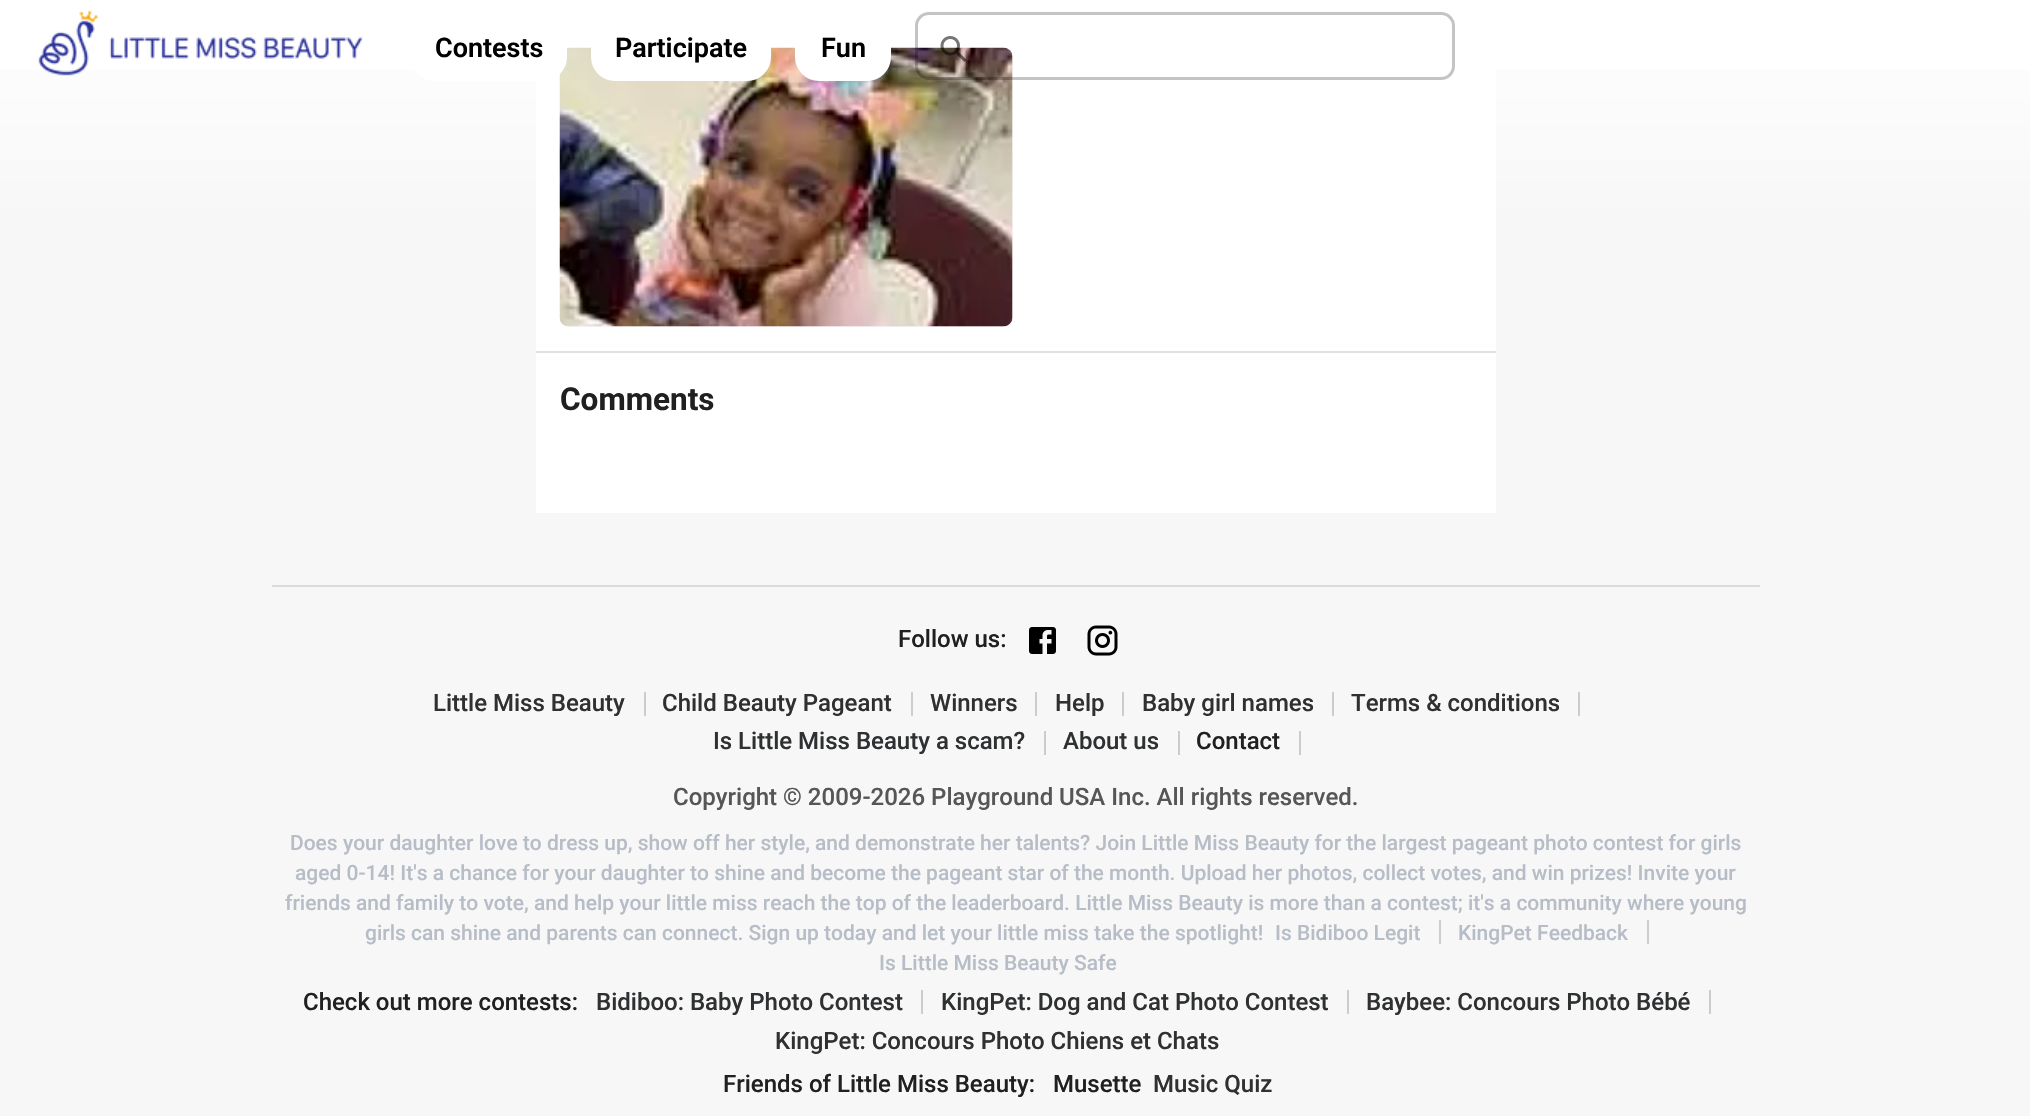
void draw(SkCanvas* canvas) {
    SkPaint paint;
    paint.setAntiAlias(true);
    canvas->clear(0xFFFFFFFF);
    {
        const SkColor colors[] = {0xFFFFFFFF, 0xFFF7F7F7};
        const float stops[] = {0, 0.2f};
        const SkPoint ends[] = {{1016, 0}, {1016, 1116}};
        paint.setShader(SkGradientShader::MakeLinear(ends, colors, stops, 2, SkTileMode::kClamp));
        paint.setAlpha(255);
    }
    canvas->drawRect(SkRect::MakeXYWH(0, 70, 2030, 1046), paint);
    canvas->drawImageRect(SkImages::DeferredFromEncodedData(SkData::MakeFromFileName("img1.png")), SkRect::MakeXYWH(38, 10, 325, 66), SkSamplingOptions());
    paint.setShader(nullptr);
    paint.setColor(0xFFFFFFFF);
    canvas->drawRect(SkRect::MakeXYWH(536, 70, 960, 443), paint);
    paint.setColor(0xFFF4F5F6);
    canvas->drawRoundRect(SkRect::MakeXYWH(560, 48, 453, 279), 9, 9, paint);
    canvas->drawImageRect(SkImages::DeferredFromEncodedData(SkData::MakeFromFileName("img3.png")), SkRect::MakeXYWH(559, 47, 454, 280), SkSamplingOptions());
    paint.setColor(0xFFFFFFFF);
    canvas->drawRoundRect(SkRect::MakeXYWH(411, 15, 156, 66), 24, 24, paint);
    SkFont font1(fontMgr->matchFamilyStyle("Roboto", SkFontStyle(600, SkFontStyle::kNormal_Width, SkFontStyle::kUpright_Slant)), 27);
    font1.setSubpixel(true);
    paint.setColor(0xFF000000);
    canvas->drawString("Contests", 435, 57, font1, paint);
    paint.setColor(0xFFFFFFFF);
    canvas->drawRoundRect(SkRect::MakeXYWH(591, 15, 180, 66), 24, 24, paint);
    paint.setColor(0xFF000000);
    canvas->drawString("Participate", 615, 57, font1, paint);
    paint.setColor(0xFFFFFFFF);
    canvas->drawRoundRect(SkRect::MakeXYWH(795, 15, 96, 66), 24, 24, paint);
    paint.setColor(0xFF000000);
    canvas->drawString("Fun", 821, 57, font1, paint);
    canvas->drawImageRect(SkImages::DeferredFromEncodedData(SkData::MakeFromFileName("img2.png")), SkRect::MakeXYWH(940, 36, 26, 26), SkSamplingOptions());
    paint.setStyle(SkPaint::kStroke_Style);
    paint.setStrokeWidth(3);
    paint.setColor(0x3B000000);
    canvas->drawRoundRect(SkRect::MakeXYWH(916.5f, 13.5f, 537, 65), 12.5f, 12.5f, paint);
    paint.setStyle(SkPaint::kFill_Style);
    paint.setColor(0xFFE1E1E1);
    canvas->drawRect(SkRect::MakeXYWH(536, 351, 960, 2), paint);
    SkFont font2(fontMgr->matchFamilyStyle("Roboto", SkFontStyle::Bold()), 31.5f);
    font2.setSubpixel(true);
    paint.setColor(0xFF202020);
    canvas->drawString("Comments", 560, 410, font2, paint);
    paint.setColor(0xFFDADADA);
    canvas->drawRect(SkRect::MakeXYWH(272, 585, 1488, 2), paint);
    SkFont font3(fontMgr->matchFamilyStyle("Roboto", SkFontStyle(500, SkFontStyle::kNormal_Width, SkFontStyle::kUpright_Slant)), 24);
    font3.setSubpixel(true);
    paint.setColor(0xFF202020);
    canvas->drawString("Follow us:", 898, 647, font3, paint);
    canvas->drawImageRect(SkImages::DeferredFromEncodedData(SkData::MakeFromFileName("img4.png")), SkRect::MakeXYWH(1029, 627, 27, 27), SkSamplingOptions());
    canvas->drawImageRect(SkImages::DeferredFromEncodedData(SkData::MakeFromFileName("img5.png")), SkRect::MakeXYWH(1087, 625, 31, 31), SkSamplingOptions());
    paint.setColor(0xFFCCCCCC);
    canvas->drawRect(SkRect::MakeXYWH(644, 692, 2, 24), paint);
    paint.setColor(0xFF2E3031);
    canvas->drawString("Little Miss Beauty", 433, 711, font3, paint);
    paint.setColor(0xFFCCCCCC);
    canvas->drawRect(SkRect::MakeXYWH(911, 692, 2, 24), paint);
    paint.setColor(0xFF2E3031);
    canvas->drawString("Child Beauty Pageant", 662, 711, font3, paint);
    paint.setColor(0xFFCCCCCC);
    canvas->drawRect(SkRect::MakeXYWH(1035, 692, 2, 24), paint);
    paint.setColor(0xFF2E3031);
    canvas->drawString("Winners", 930, 711, font3, paint);
    paint.setColor(0xFFCCCCCC);
    canvas->drawRect(SkRect::MakeXYWH(1122, 692, 2, 24), paint);
    paint.setColor(0xFF2E3031);
    canvas->drawString("Help", 1055, 711, font3, paint);
    paint.setColor(0xFFCCCCCC);
    canvas->drawRect(SkRect::MakeXYWH(1332, 692, 2, 24), paint);
    paint.setColor(0xFF2E3031);
    canvas->drawString("Baby girl names", 1142, 711, font3, paint);
    paint.setColor(0xFFCCCCCC);
    canvas->drawRect(SkRect::MakeXYWH(1578, 692, 2, 24), paint);
    paint.setColor(0xFF2E3031);
    canvas->drawString("Terms & conditions", 1351, 711, font3, paint);
    paint.setColor(0xFFCCCCCC);
    canvas->drawRect(SkRect::MakeXYWH(1044, 731, 2, 24), paint);
    paint.setColor(0xFF2E3031);
    canvas->drawString("Is Little Miss Beauty a scam?", 713, 749, font3, paint);
    paint.setColor(0xFFCCCCCC);
    canvas->drawRect(SkRect::MakeXYWH(1178, 731, 2, 24), paint);
    paint.setColor(0xFF2E3031);
    canvas->drawString("About us", 1063, 749, font3, paint);
    paint.setColor(0xFFCCCCCC);
    canvas->drawRect(SkRect::MakeXYWH(1299, 731, 2, 24), paint);
    paint.setColor(0xFF202020);
    canvas->drawString("Contact", 1196, 749, font3, paint);
    paint.setColor(0xFF565656);
    canvas->drawString("Copyright © 2009-2026 Playground USA Inc. All rights reserved.", 673, 805, font3, paint);
    SkFont font4(fontMgr->matchFamilyStyle("Roboto", SkFontStyle(500, SkFontStyle::kNormal_Width, SkFontStyle::kUpright_Slant)), 21);
    font4.setSubpixel(true);
    paint.setColor(0xFFB7BDC7);
    canvas->drawString("Does your daughter love to dress up, show off her style, and demonstrate her talents? Join Little Miss Beauty for the largest pageant photo contest for girls", 290, 850, font4, paint);
    canvas->drawString("aged 0-14! It's a chance for your daughter to shine and become the pageant star of the month. Upload her photos, collect votes, and win prizes! Invite your", 295, 880, font4, paint);
    canvas->drawString("friends and family to vote, and help your little miss reach the top of the leaderboard. Little Miss Beauty is more than a contest; it's a community where young", 285, 910, font4, paint);
    canvas->drawString("girls can shine and parents can connect. Sign up today and let your little miss take the spotlight!", 365, 940, font4, paint);
    paint.setColor(0xFFCCCCCC);
    canvas->drawRect(SkRect::MakeXYWH(1439, 920, 2, 24), paint);
    paint.setColor(0xFFB7BDC7);
    canvas->drawString("Is Bidiboo Legit", 1275, 940, font4, paint);
    paint.setColor(0xFFCCCCCC);
    canvas->drawRect(SkRect::MakeXYWH(1647, 920, 2, 24), paint);
    paint.setColor(0xFFB7BDC7);
    canvas->drawString("KingPet Feedback", 1458, 940, font4, paint);
    canvas->drawString("Is Little Miss Beauty Safe", 879, 970, font4, paint);
    paint.setColor(0xFF202020);
    canvas->drawString("Check out more contests:", 303, 1010, font3, paint);
    paint.setColor(0xFFCCCCCC);
    canvas->drawRect(SkRect::MakeXYWH(921, 990, 2, 24), paint);
    paint.setColor(0xFF2E3031);
    canvas->drawString("Bidiboo: Baby Photo Contest", 596, 1010, font3, paint);
    paint.setColor(0xFFCCCCCC);
    canvas->drawRect(SkRect::MakeXYWH(1347, 990, 2, 24), paint);
    paint.setColor(0xFF2E3031);
    canvas->drawString("KingPet: Dog and Cat Photo Contest", 941, 1010, font3, paint);
    paint.setColor(0xFFCCCCCC);
    canvas->drawRect(SkRect::MakeXYWH(1709, 990, 2, 24), paint);
    paint.setColor(0xFF2E3031);
    canvas->drawString("Baybee: Concours Photo Bébé", 1366, 1010, font3, paint);
    canvas->drawString("KingPet: Concours Photo Chiens et Chats", 775, 1049, font3, paint);
    paint.setColor(0xFF202020);
    canvas->drawString("Friends of Little Miss Beauty:", 723, 1092, font3, paint);
    canvas->drawString("Musette", 1053, 1092, font3, paint);
    paint.setColor(0xFF2E3031);
    canvas->drawString("Music Quiz", 1153, 1092, font3, paint);
}
